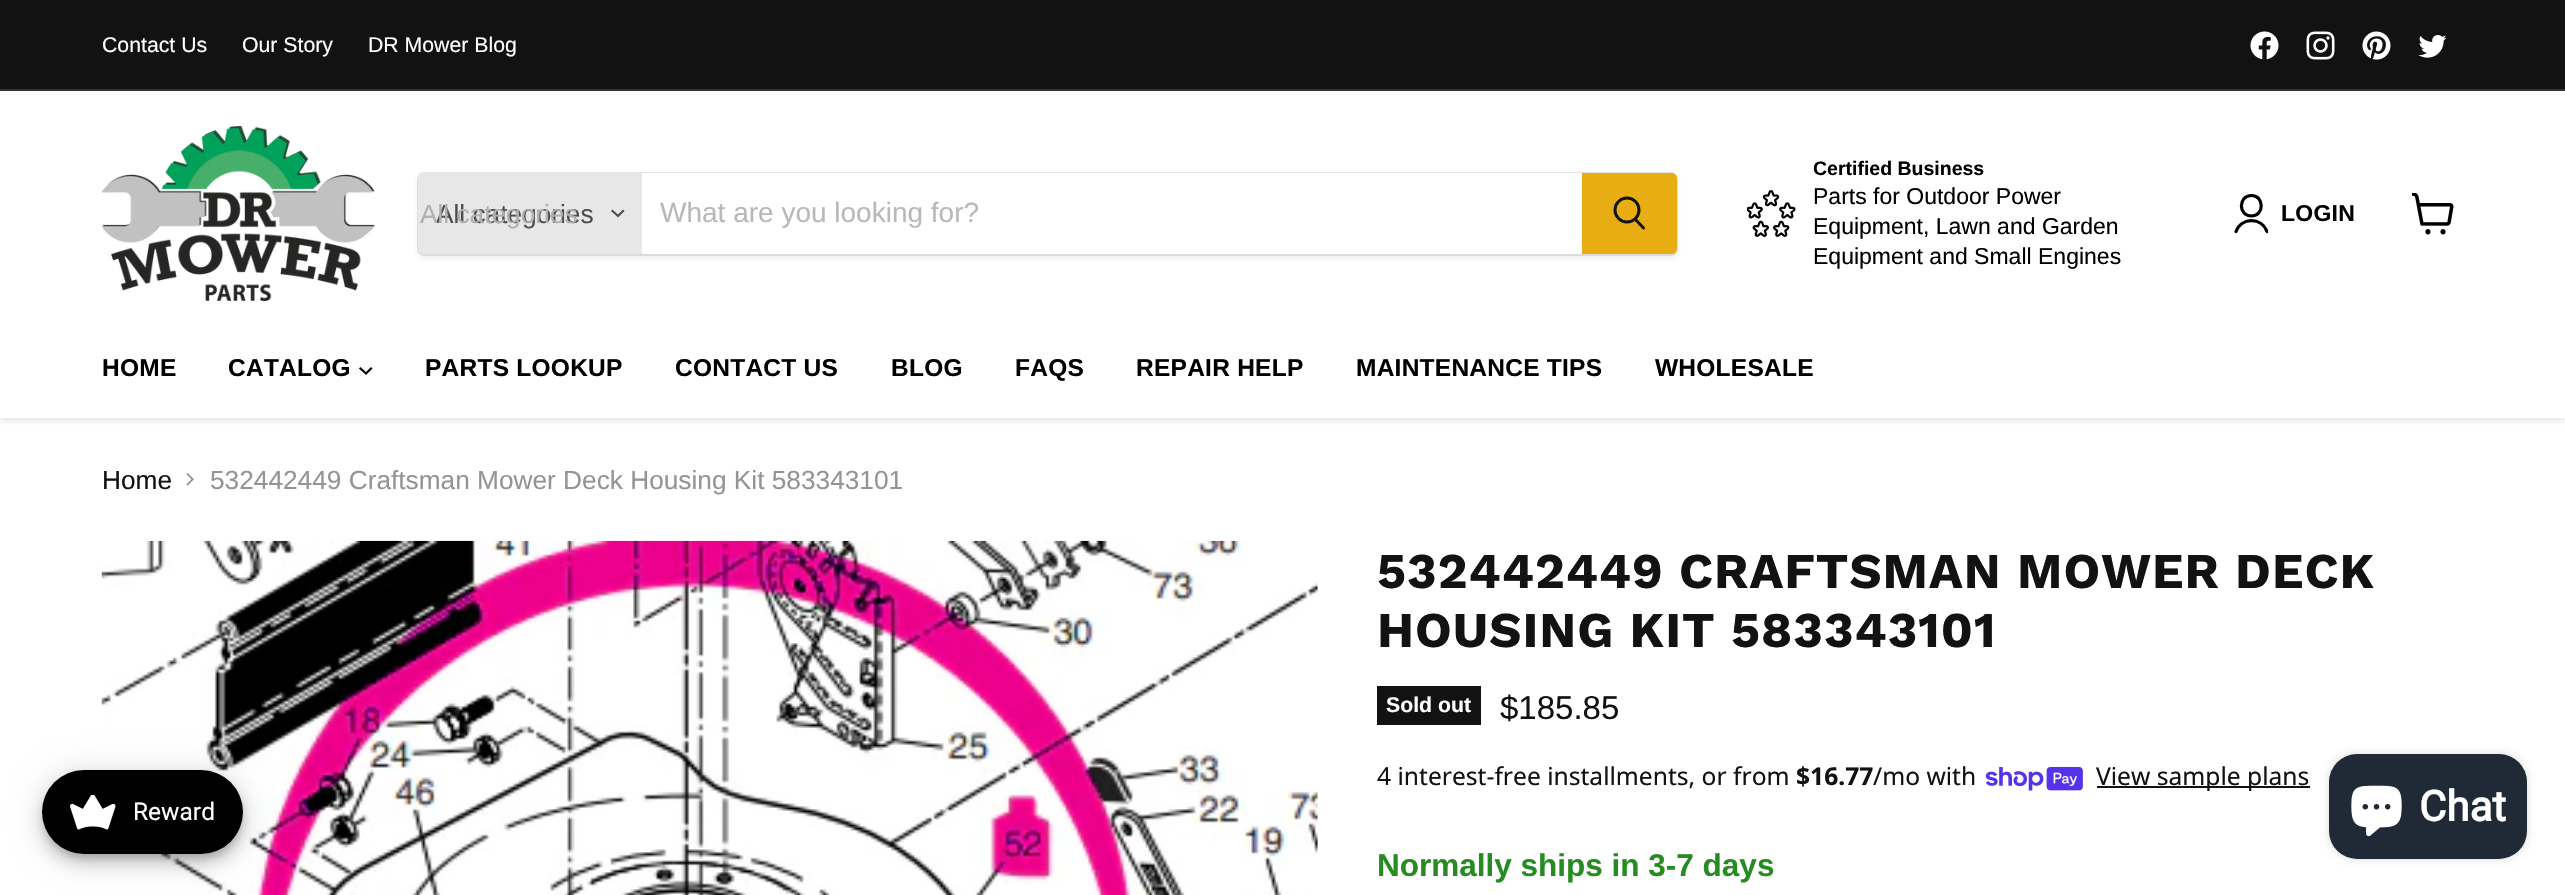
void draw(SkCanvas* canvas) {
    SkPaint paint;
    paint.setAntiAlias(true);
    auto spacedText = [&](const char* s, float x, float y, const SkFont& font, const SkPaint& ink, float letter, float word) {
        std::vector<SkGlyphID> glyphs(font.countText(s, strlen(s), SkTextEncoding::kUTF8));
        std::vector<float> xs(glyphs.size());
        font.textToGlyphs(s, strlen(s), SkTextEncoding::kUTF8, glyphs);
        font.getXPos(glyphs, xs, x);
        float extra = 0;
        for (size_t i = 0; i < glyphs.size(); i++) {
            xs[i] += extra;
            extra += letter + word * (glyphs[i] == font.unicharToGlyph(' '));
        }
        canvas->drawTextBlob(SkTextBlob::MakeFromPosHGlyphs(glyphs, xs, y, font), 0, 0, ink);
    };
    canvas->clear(0xFFFFFFFF);
    canvas->save();
    canvas->clipRect(SkRect::MakeXYWH(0, 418, 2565, 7));
    paint.setColor(0x40808080);
    paint.setMaskFilter(SkMaskFilter::MakeBlur(kNormal_SkBlurStyle, 3.5f));
    canvas->drawRect(SkRect::MakeXYWH(0, 93, 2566, 327), paint);
    paint.setMaskFilter(nullptr);
    canvas->restore();
    paint.setColor(0xFF121212);
    canvas->drawRect(SkRect::MakeXYWH(0, 0, 2565, 89), paint);
    paint.setColor(0xFF353535);
    canvas->drawRect(SkRect::MakeXYWH(0, 89, 2565, 2), paint);
    SkFont font1(fontMgr->matchFamilyStyle("Liberation Sans", SkFontStyle::Normal()), 21.25f);
    font1.setSubpixel(true);
    paint.setColor(0xFFFFFFFF);
    canvas->drawString("Contact Us", 102, 52, font1, paint);
    canvas->drawString("Our Story", 242, 52, font1, paint);
    canvas->drawString("DR Mower Blog", 368, 52, font1, paint);
    canvas->drawImageRect(SkImages::DeferredFromEncodedData(SkData::MakeFromFileName("img1.png")), SkRect::MakeXYWH(2250, 31, 29, 29), SkSamplingOptions());
    canvas->drawImageRect(SkImages::DeferredFromEncodedData(SkData::MakeFromFileName("img2.png")), SkRect::MakeXYWH(2306, 31, 29, 29), SkSamplingOptions());
    canvas->drawImageRect(SkImages::DeferredFromEncodedData(SkData::MakeFromFileName("img3.png")), SkRect::MakeXYWH(2362, 31, 29, 29), SkSamplingOptions());
    canvas->drawImageRect(SkImages::DeferredFromEncodedData(SkData::MakeFromFileName("img4.png")), SkRect::MakeXYWH(2418, 35, 29, 23), SkSamplingOptions());
    canvas->drawImageRect(SkImages::DeferredFromEncodedData(SkData::MakeFromFileName("img5.png")), SkRect::MakeXYWH(101, 126, 274, 175), SkSamplingOptions());
    paint.setColor(0x1C808080);
    paint.setMaskFilter(SkMaskFilter::MakeBlur(kNormal_SkBlurStyle, 2.5f));
    canvas->drawRoundRect(SkRect::MakeXYWH(417, 175, 1261, 84), 7, 7, paint);
    paint.setMaskFilter(nullptr);
    paint.setStyle(SkPaint::kStroke_Style);
    paint.setStrokeWidth(2);
    paint.setColor(0x33808080);
    canvas->drawRoundRect(SkRect::MakeXYWH(418, 173, 1259, 82), 6, 6, paint);
    paint.setStyle(SkPaint::kFill_Style);
    paint.setColor(0xFFE7E7E7);
    canvas->drawPath(SkPathBuilder().moveTo(423, 173).lineTo(642, 173).lineTo(642, 254).lineTo(423, 254).cubicTo(420, 254, 418, 252, 418, 249).lineTo(418, 178).cubicTo(418, 175, 420, 173, 423, 173).close().detach(), paint);
    SkFont font2(fontMgr->matchFamilyStyle("Liberation Sans", SkFontStyle::Normal()), 26.25f);
    font2.setSubpixel(true);
    paint.setColor(0xFF4D4D4D);
    canvas->drawString("All categories", 436, 223, font2, paint);
    paint.setColor(0xFFB0B0B0);
    canvas->drawString("All categories", 420, 223, font2, paint);
    paint.setStyle(SkPaint::kStroke_Style);
    paint.setStrokeWidth(2.2f);
    paint.setStrokeCap(SkPaint::kSquare_Cap);
    paint.setColor(0xFF4D4D4D);
    canvas->drawPath(SkPathBuilder().moveTo(618, 216).lineTo(623, 211).moveTo(618, 216).lineTo(612.5f, 211).detach(), paint);
    paint.setStyle(SkPaint::kFill_Style);
    paint.setColor(0xFFFFFFFF);
    canvas->drawRect(SkRect::MakeXYWH(642, 173, 940, 81), paint);
    SkFont font3(fontMgr->matchFamilyStyle("Liberation Sans", SkFontStyle::Normal()), 28);
    font3.setSubpixel(true);
    paint.setColor(0xFFB8B8B8);
    canvas->drawString("What are you looking for?", 660, 222, font3, paint);
    paint.setColor(0xFFE9AD14);
    canvas->drawPath(SkPathBuilder().moveTo(1583, 174).lineTo(1672, 174).cubicTo(1674, 174, 1676, 176, 1676, 178).lineTo(1676, 249).cubicTo(1676, 251, 1674, 253, 1672, 253).lineTo(1583, 253).close().detach(), paint);
    paint.setStyle(SkPaint::kStroke_Style);
    paint.setStrokeWidth(2);
    paint.setStrokeCap(SkPaint::kButt_Cap);
    canvas->drawPath(SkPathBuilder().moveTo(1583, 174).lineTo(1672, 174).cubicTo(1674, 174, 1676, 176, 1676, 178).lineTo(1676, 249).cubicTo(1676, 251, 1674, 253, 1672, 253).lineTo(1583, 253).close().detach(), paint);
    paint.setStrokeWidth(3);
    paint.setStrokeCap(SkPaint::kRound_Cap);
    paint.setColor(0xFF121212);
    canvas->drawPath(SkPathBuilder().moveTo(1643.5f, 228).lineTo(1635.5f, 219.5f).detach(), paint);
    paint.setStrokeCap(SkPaint::kButt_Cap);
    canvas->drawCircle(1627, 210, 12, paint);
    canvas->drawImageRect(SkImages::DeferredFromEncodedData(SkData::MakeFromFileName("img6.png")), SkRect::MakeXYWH(1747, 190, 49, 47), SkSamplingOptions());
    SkFont font4(fontMgr->matchFamilyStyle("Liberation Sans", SkFontStyle::Bold()), 19.5f);
    font4.setSubpixel(true);
    paint.setStyle(SkPaint::kFill_Style);
    paint.setColor(0xFF000000);
    canvas->drawString("Certified Business", 1813, 175, font4, paint);
    SkFont font5(fontMgr->matchFamilyStyle("Liberation Sans", SkFontStyle::Normal()), 23);
    font5.setSubpixel(true);
    canvas->drawString("Parts for Outdoor Power", 1813, 204, font5, paint);
    canvas->drawString("Equipment, Lawn and Garden", 1813, 234, font5, paint);
    canvas->drawString("Equipment and Small Engines", 1813, 264, font5, paint);
    paint.setStyle(SkPaint::kStroke_Style);
    paint.setStrokeWidth(3.2f);
    paint.setStrokeCap(SkPaint::kRound_Cap);
    paint.setStrokeJoin(SkPaint::kRound_Join);
    canvas->drawPath(SkPathBuilder().moveTo(2251.5f, 216).cubicTo(2264.5f, 216, 2264.5f, 195.5f, 2251.5f, 195.5f).cubicTo(2238, 195.5f, 2238, 216, 2251.5f, 216).close().detach(), paint);
    canvas->save();
    canvas->clipRect(SkRect::MakeXYWH(2233, 193, 35, 42));
    canvas->drawPath(SkPathBuilder().moveTo(2267, 231.5f).cubicTo(2261.5f, 217, 2241.5f, 217, 2236, 231.5f).detach(), paint);
    canvas->restore();
    SkFont font6(fontMgr->matchFamilyStyle("Liberation Sans", SkFontStyle::Bold()), 23);
    font6.setSubpixel(true);
    paint.setStyle(SkPaint::kFill_Style);
    spacedText("LOGIN", 2281, 221, font6, paint, 0.25f, 0);
    canvas->drawImageRect(SkImages::DeferredFromEncodedData(SkData::MakeFromFileName("img7.png")), SkRect::MakeXYWH(2412, 193, 42, 42), SkSamplingOptions());
    SkFont font7(fontMgr->matchFamilyStyle("Liberation Sans", SkFontStyle::Bold()), 24.5f);
    font7.setSubpixel(true);
    spacedText("HOME", 102, 376, font7, paint, 0.25f, 0);
    spacedText("CATALOG", 228, 376, font7, paint, 0.25f, 0);
    paint.setStyle(SkPaint::kStroke_Style);
    paint.setStrokeWidth(2.2f);
    paint.setStrokeCap(SkPaint::kSquare_Cap);
    paint.setStrokeJoin(SkPaint::kMiter_Join);
    canvas->drawPath(SkPathBuilder().moveTo(366, 373.5f).lineTo(371, 368.5f).moveTo(366, 373.5f).lineTo(360.5f, 368.5f).detach(), paint);
    paint.setStyle(SkPaint::kFill_Style);
    spacedText("PARTS LOOKUP", 425, 376, font7, paint, 0.25f, 0);
    spacedText("CONTACT US", 675, 376, font7, paint, 0.25f, 0);
    spacedText("BLOG", 891, 376, font7, paint, 0.25f, 0);
    spacedText("FAQS", 1015, 376, font7, paint, 0.25f, 0);
    spacedText("REPAIR HELP", 1136, 376, font7, paint, 0.25f, 0);
    spacedText("MAINTENANCE TIPS", 1356, 376, font7, paint, 0.25f, 0);
    spacedText("WHOLESALE", 1655, 376, font7, paint, 0.25f, 0);
    paint.setColor(0xFF121212);
    canvas->drawString("Home", 102, 489, font2, paint);
    canvas->drawImageRect(SkImages::DeferredFromEncodedData(SkData::MakeFromFileName("img8.png")), SkRect::MakeXYWH(186, 473, 8, 13), SkSamplingOptions());
    paint.setColor(0xFF949494);
    canvas->drawString("532442449 Craftsman Mower Deck Housing Kit 583343101", 210, 489, font2, paint);
    canvas->drawImageRect(SkImages::DeferredFromEncodedData(SkData::MakeFromFileName("img9.png")), SkRect::MakeXYWH(101, 540, 1217, 355), SkSamplingOptions());
    SkFont font8(fontMgr->matchFamilyStyle("Work Sans", SkFontStyle::Bold()), 49.9f);
    font8.setSubpixel(true);
    paint.setColor(0xFF121212);
    spacedText("532442449 CRAFTSMAN MOWER DECK", 1377, 588, font8, paint, 1, 0);
    spacedText("HOUSING KIT 583343101", 1377, 647, font8, paint, 1, 0);
    canvas->drawRect(SkRect::MakeXYWH(1377, 686, 104, 39), paint);
    SkFont font9(fontMgr->matchFamilyStyle("Liberation Sans", SkFontStyle::Bold()), 21.25f);
    font9.setSubpixel(true);
    paint.setColor(0xFFFFFFFF);
    canvas->drawString("Sold out", 1386, 712, font9, paint);
    SkFont font10(fontMgr->matchFamilyStyle("Liberation Sans", SkFontStyle::Normal()), 33);
    font10.setSubpixel(true);
    paint.setColor(0xFF121212);
    canvas->drawString("$185.85", 1500, 719, font10, paint);
    SkFont font11(fontMgr->matchFamilyStyle("Noto Sans", SkFontStyle::Normal()), 24.6f);
    font11.setSubpixel(true);
    canvas->drawString("4 interest-free installments, or from", 1377, 785, font11, paint);
    SkFont font12(fontMgr->matchFamilyStyle("Noto Sans", SkFontStyle::Bold()), 24.6f);
    font12.setSubpixel(true);
    canvas->drawString("$16.77", 1796, 785, font12, paint);
    canvas->drawString("/mo with", 1873, 785, font11, paint);
    canvas->drawImageRect(SkImages::DeferredFromEncodedData(SkData::MakeFromFileName("img10.png")), SkRect::MakeXYWH(1985, 767, 98, 24), SkSamplingOptions());
    canvas->drawRect(SkRect::MakeXYWH(2097, 786, 213, 2), paint);
    canvas->drawString("View sample plans", 2096, 785, font11, paint);
    SkFont font13(fontMgr->matchFamilyStyle("Liberation Sans", SkFontStyle::Bold()), 31.5f);
    font13.setSubpixel(true);
    paint.setColor(0xFF268C21);
    canvas->drawString("Normally ships in 3-7 days", 1377, 876, font13, paint);
    paint.setColor(0x26000000);
    paint.setMaskFilter(SkMaskFilter::MakeBlur(kNormal_SkBlurStyle, 4.5f));
    canvas->drawRoundRect(SkRect::MakeXYWH(2329, 754, 198, 105), 28, 28, paint);
    paint.setMaskFilter(nullptr);
    paint.setColor(0xFF202A36);
    canvas->drawRoundRect(SkRect::MakeXYWH(2329, 754, 198, 105), 28, 28, paint);
    canvas->drawImageRect(SkImages::DeferredFromEncodedData(SkData::MakeFromFileName("img11.png")), SkRect::MakeXYWH(2351, 785, 51, 52), SkSamplingOptions());
    SkFont font14(fontMgr->matchFamilyStyle("Roboto", SkFontStyle::Bold()), 42);
    font14.setSubpixel(true);
    paint.setColor(0xFFFFFFFF);
    canvas->drawString("Chat", 2419, 821, font14, paint);
    paint.setColor(0x1F000000);
    paint.setMaskFilter(SkMaskFilter::MakeBlur(kNormal_SkBlurStyle, 16));
    canvas->drawRoundRect(SkRect::MakeXYWH(42, 772, 201, 84), 42, 42, paint);
    paint.setMaskFilter(nullptr);
    paint.setColor(0x24000000);
    paint.setMaskFilter(SkMaskFilter::MakeBlur(kNormal_SkBlurStyle, 9));
    canvas->drawRoundRect(SkRect::MakeXYWH(42, 781, 201, 84), 42, 42, paint);
    paint.setMaskFilter(nullptr);
    paint.setColor(0x33000000);
    paint.setMaskFilter(SkMaskFilter::MakeBlur(kNormal_SkBlurStyle, 4.5f));
    canvas->drawRoundRect(SkRect::MakeXYWH(44, 777, 198, 81), 40.5f, 40.5f, paint);
    paint.setMaskFilter(nullptr);
    paint.setColor(0xFF000000);
    canvas->drawRoundRect(SkRect::MakeXYWH(42, 770, 201, 84), 42, 42, paint);
    canvas->drawImageRect(SkImages::DeferredFromEncodedData(SkData::MakeFromFileName("img12.png")), SkRect::MakeXYWH(70, 795, 46, 35), SkSamplingOptions());
    SkFont font15(fontMgr->matchFamilyStyle("Roboto", SkFontStyle::Normal()), 24.5f);
    font15.setSubpixel(true);
    paint.setColor(0xFFFFFFFF);
    canvas->drawString("Reward", 133, 820, font15, paint);
}
